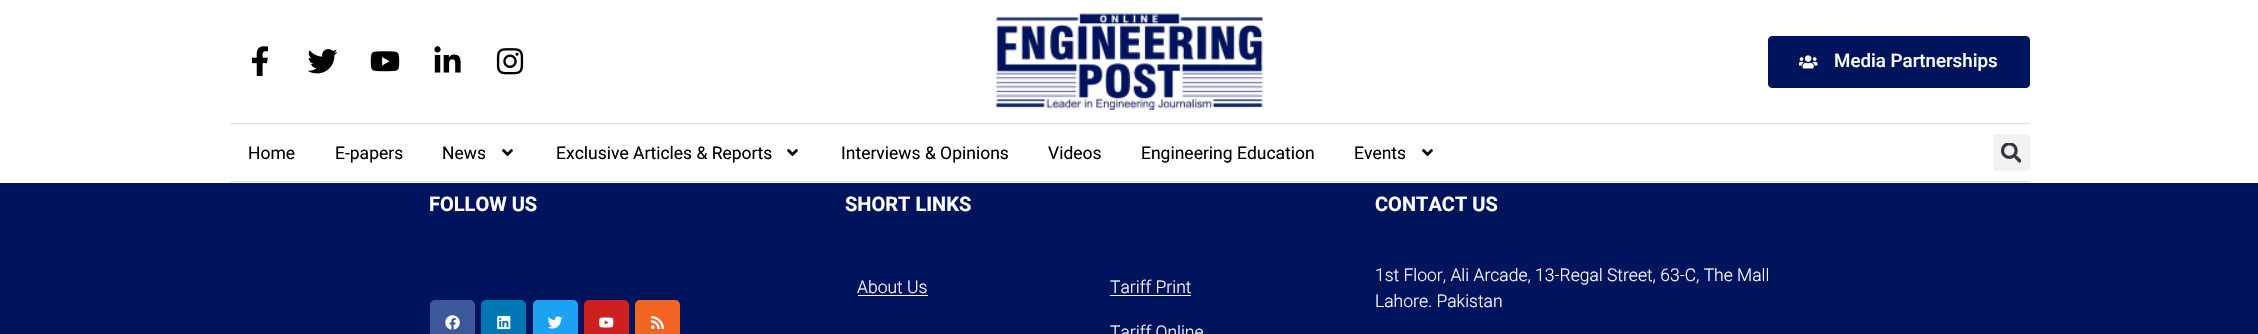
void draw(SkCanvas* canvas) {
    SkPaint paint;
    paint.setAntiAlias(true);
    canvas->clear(0xFF00135D);
    paint.setColor(0xFFFFFFFF);
    canvas->drawRect(SkRect::MakeXYWH(0, 0, 2258, 183), paint);
    canvas->drawImageRect(SkImages::DeferredFromEncodedData(SkData::MakeFromFileName("img1.png")), SkRect::MakeXYWH(251, 46, 18, 30), SkSamplingOptions());
    canvas->drawImageRect(SkImages::DeferredFromEncodedData(SkData::MakeFromFileName("img2.png")), SkRect::MakeXYWH(308, 49, 30, 25), SkSamplingOptions());
    canvas->drawImageRect(SkImages::DeferredFromEncodedData(SkData::MakeFromFileName("img3.png")), SkRect::MakeXYWH(370, 51, 30, 21), SkSamplingOptions());
    canvas->drawImageRect(SkImages::DeferredFromEncodedData(SkData::MakeFromFileName("img4.png")), SkRect::MakeXYWH(434, 46, 27, 27), SkSamplingOptions());
    canvas->drawImageRect(SkImages::DeferredFromEncodedData(SkData::MakeFromFileName("img5.png")), SkRect::MakeXYWH(496, 48, 28, 27), SkSamplingOptions());
    canvas->drawImageRect(SkImages::DeferredFromEncodedData(SkData::MakeFromFileName("img6.png")), SkRect::MakeXYWH(995, 13, 268, 97), SkSamplingOptions());
    paint.setColor(0xFF00135D);
    canvas->drawRoundRect(SkRect::MakeXYWH(1768.5f, 36.5f, 261, 51), 3.5f, 3.5f, paint);
    paint.setStyle(SkPaint::kStroke_Style);
    paint.setStrokeWidth(1);
    canvas->drawRoundRect(SkRect::MakeXYWH(1768.5f, 36.5f, 261, 51), 3.5f, 3.5f, paint);
    canvas->drawImageRect(SkImages::DeferredFromEncodedData(SkData::MakeFromFileName("img7.png")), SkRect::MakeXYWH(1799, 55, 19, 14), SkSamplingOptions());
    SkFont font1(fontMgr->matchFamilyStyle("Roboto", SkFontStyle(500, SkFontStyle::kNormal_Width, SkFontStyle::kUpright_Slant)), 18.75f);
    font1.setSubpixel(true);
    paint.setStyle(SkPaint::kFill_Style);
    paint.setColor(0xFFFFFFFF);
    canvas->drawString("Media Partnerships", 1834, 67, font1, paint);
    paint.setColor(0xFFDDDDDD);
    canvas->drawRect(SkRect::MakeXYWH(230, 123, 1800, 1), paint);
    canvas->drawRect(SkRect::MakeXYWH(230, 181, 1800, 1), paint);
    SkFont font2(fontMgr->matchFamilyStyle("Roboto", SkFontStyle::Normal()), 17.5f);
    font2.setSubpixel(true);
    paint.setColor(0xFF000000);
    canvas->drawString("Home", 248, 159, font2, paint);
    canvas->drawString("E-papers", 335, 159, font2, paint);
    canvas->drawString("News", 442, 159, font2, paint);
    canvas->drawImageRect(SkImages::DeferredFromEncodedData(SkData::MakeFromFileName("img8.png")), SkRect::MakeXYWH(502, 149, 11, 7), SkSamplingOptions());
    canvas->drawString("Exclusive Articles & Reports", 556, 159, font2, paint);
    canvas->drawImageRect(SkImages::DeferredFromEncodedData(SkData::MakeFromFileName("img8.png")), SkRect::MakeXYWH(787, 149, 11, 7), SkSamplingOptions());
    canvas->drawString("Interviews & Opinions", 841, 159, font2, paint);
    canvas->drawString("Videos", 1048, 159, font2, paint);
    canvas->drawString("Engineering Education", 1141, 159, font2, paint);
    canvas->drawString("Events", 1354, 159, font2, paint);
    canvas->drawImageRect(SkImages::DeferredFromEncodedData(SkData::MakeFromFileName("img8.png")), SkRect::MakeXYWH(1422, 149, 11, 7), SkSamplingOptions());
    paint.setColor(0xFFF2F2F2);
    canvas->drawRoundRect(SkRect::MakeXYWH(1993, 134, 37, 37), 4, 4, paint);
    canvas->drawImageRect(SkImages::DeferredFromEncodedData(SkData::MakeFromFileName("img9.png")), SkRect::MakeXYWH(2001, 143, 20, 20), SkSamplingOptions());
    SkFont font3(fontMgr->matchFamilyStyle("Roboto", SkFontStyle::Bold()), 20);
    font3.setSubpixel(true);
    paint.setColor(0xFFFFFFFF);
    canvas->drawString("FOLLOW US", 429, 211, font3, paint);
    paint.setColor(0xFF3B5998);
    canvas->drawRoundRect(SkRect::MakeXYWH(430, 300, 45, 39), 5, 5, paint);
    canvas->drawImageRect(SkImages::DeferredFromEncodedData(SkData::MakeFromFileName("img10.png")), SkRect::MakeXYWH(445, 315, 15, 15), SkSamplingOptions());
    paint.setColor(0xFF0077B5);
    canvas->drawRoundRect(SkRect::MakeXYWH(481, 300, 45, 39), 5, 5, paint);
    canvas->drawImageRect(SkImages::DeferredFromEncodedData(SkData::MakeFromFileName("img11.png")), SkRect::MakeXYWH(497, 315, 14, 15), SkSamplingOptions());
    paint.setColor(0xFF1DA1F2);
    canvas->drawRoundRect(SkRect::MakeXYWH(533, 300, 45, 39), 5, 5, paint);
    canvas->drawImageRect(SkImages::DeferredFromEncodedData(SkData::MakeFromFileName("img12.png")), SkRect::MakeXYWH(548, 316, 15, 13), SkSamplingOptions());
    paint.setColor(0xFFCD201F);
    canvas->drawRoundRect(SkRect::MakeXYWH(584, 300, 45, 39), 5, 5, paint);
    canvas->drawImageRect(SkImages::DeferredFromEncodedData(SkData::MakeFromFileName("img13.png")), SkRect::MakeXYWH(599, 317, 15, 11), SkSamplingOptions());
    paint.setColor(0xFFF26522);
    canvas->drawRoundRect(SkRect::MakeXYWH(635, 300, 45, 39), 5, 5, paint);
    canvas->drawImageRect(SkImages::DeferredFromEncodedData(SkData::MakeFromFileName("img14.png")), SkRect::MakeXYWH(650, 316, 14, 14), SkSamplingOptions());
    paint.setColor(0xFFFFFFFF);
    canvas->drawString("SHORT LINKS", 845, 211, font3, paint);
    SkFont font4(fontMgr->matchFamilyStyle("Roboto", SkFontStyle(300, SkFontStyle::kNormal_Width, SkFontStyle::kUpright_Slant)), 17.5f);
    font4.setSubpixel(true);
    canvas->drawString("About Us", 857, 293, font4, paint);
    canvas->drawRect(SkRect::MakeXYWH(858, 295, 70, 1), paint);
    canvas->drawString("Tariff Print", 1110, 293, font4, paint);
    canvas->drawRect(SkRect::MakeXYWH(1110, 295, 81, 1), paint);
    canvas->drawString("Tariff Online", 1110, 338, font4, paint);
    canvas->drawString("CONTACT US", 1375, 211, font3, paint);
    canvas->drawString("1st Floor, Ali Arcade, 13-Regal Street, 63-C, The Mall", 1375, 281, font4, paint);
    canvas->drawString("Lahore. Pakistan", 1375, 307, font4, paint);
}
